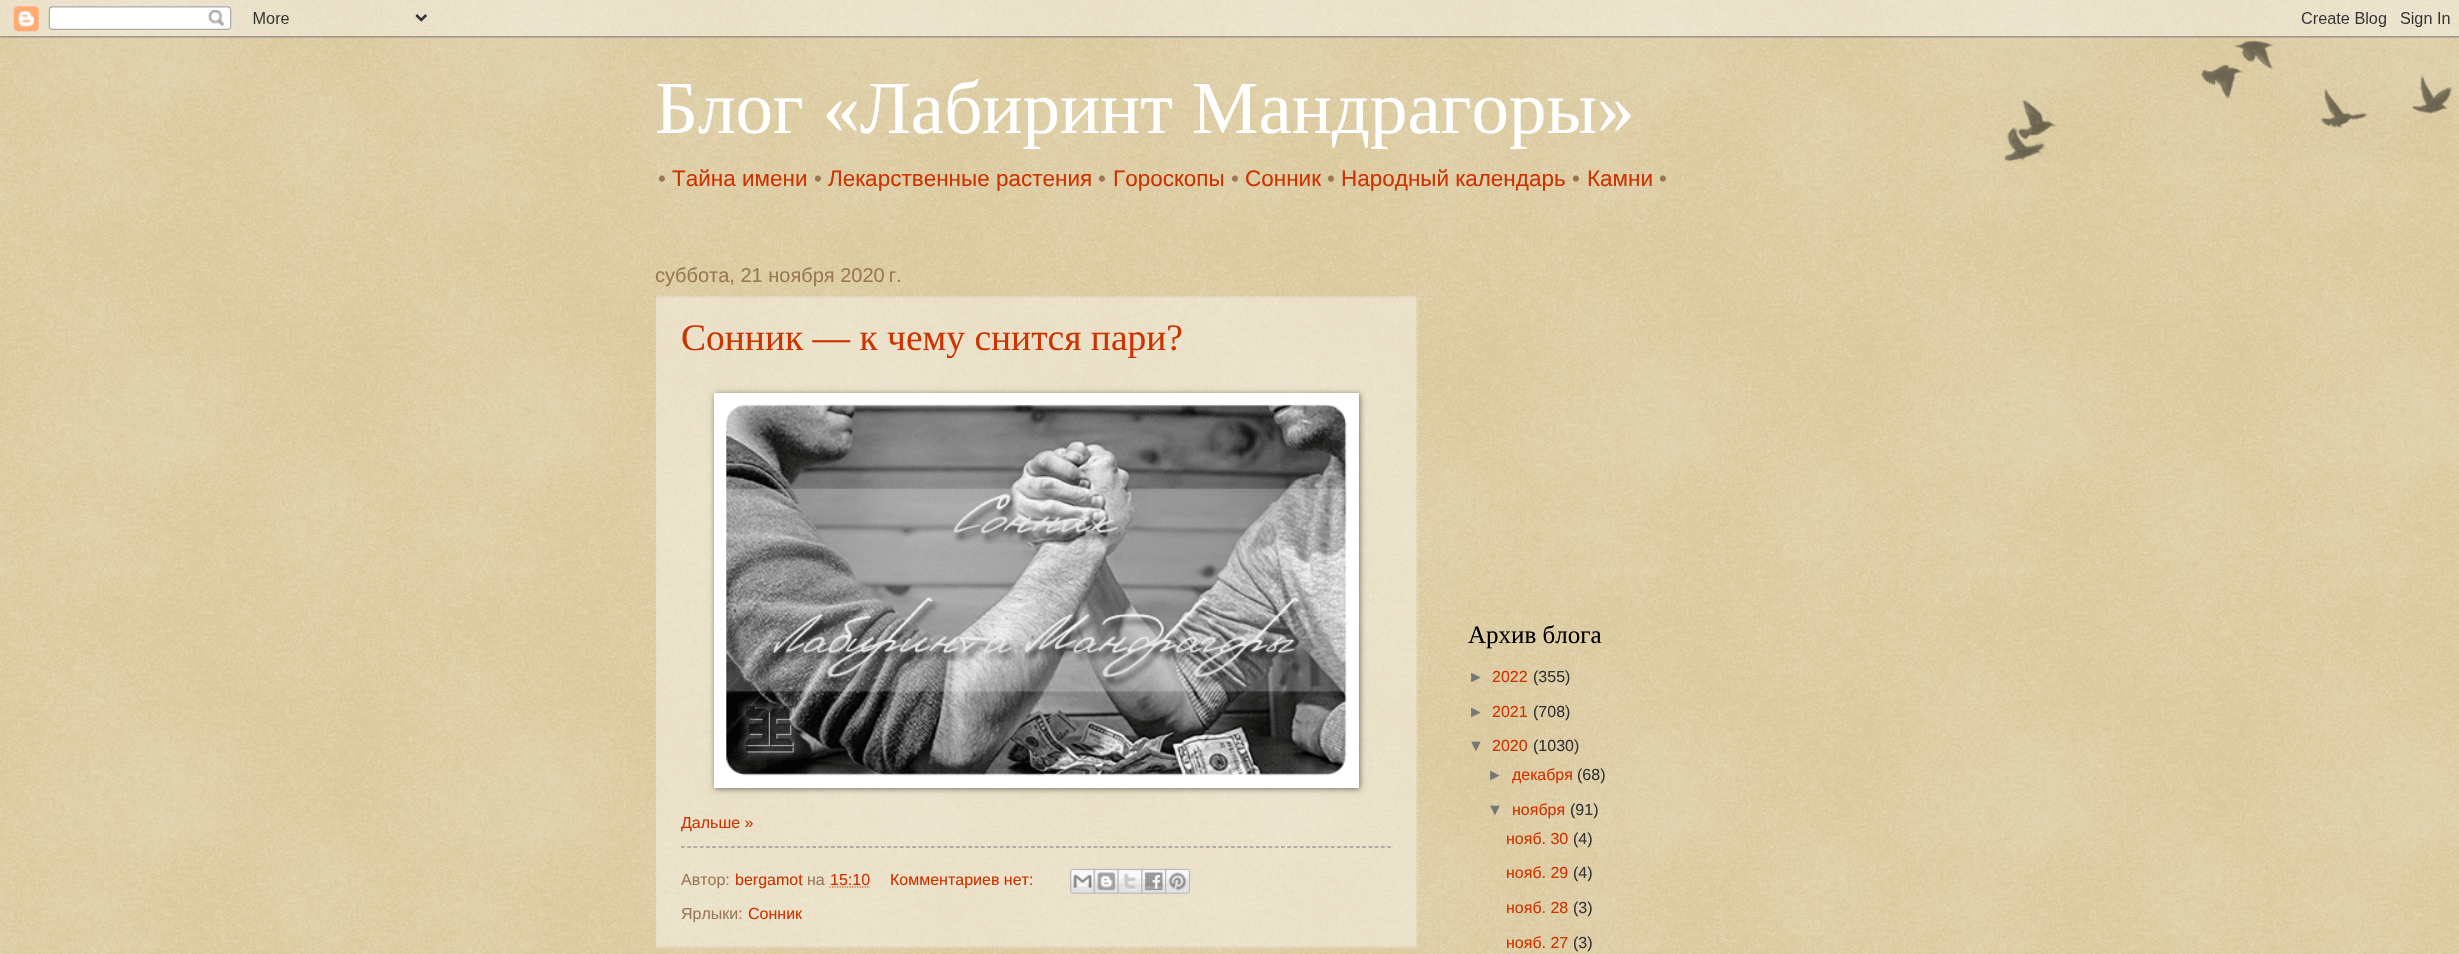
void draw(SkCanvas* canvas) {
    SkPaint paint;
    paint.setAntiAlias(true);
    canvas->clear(0xFFC0A154);
    canvas->drawImageRect(SkImages::DeferredFromEncodedData(SkData::MakeFromFileName("img1.png")), SkRect::MakeXYWH(0, 0, 2459, 954), SkSamplingOptions());
    canvas->drawImageRect(SkImages::DeferredFromEncodedData(SkData::MakeFromFileName("img2.png")), SkRect::MakeXYWH(0, 0, 2459, 38), SkSamplingOptions());
    SkFont font1(fontMgr->matchFamilyStyle("Liberation Serif", SkFontStyle::Normal()), 75);
    font1.setSubpixel(true);
    paint.setColor(0xFFFFFFFF);
    canvas->drawString("Блог «Лабиринт Мандрагоры»", 655, 133, font1, paint);
    SkFont font2(fontMgr->matchFamilyStyle("Liberation Sans", SkFontStyle::Normal()), 22.5f);
    font2.setSubpixel(true);
    paint.setColor(0xFF997755);
    canvas->drawString("•", 658, 186, font2, paint);
    paint.setColor(0xFFCC3300);
    canvas->drawString("Тайна имени", 672, 186, font2, paint);
    paint.setColor(0xFF997755);
    canvas->drawString("•", 814, 186, font2, paint);
    paint.setColor(0xFFCC3300);
    canvas->drawString("Лекарственные растения", 828, 186, font2, paint);
    paint.setColor(0xFF997755);
    canvas->drawString("•", 1098, 186, font2, paint);
    paint.setColor(0xFFCC3300);
    canvas->drawString("Гороскопы", 1113, 186, font2, paint);
    paint.setColor(0xFF997755);
    canvas->drawString("•", 1231, 186, font2, paint);
    paint.setColor(0xFFCC3300);
    canvas->drawString("Сонник", 1245, 186, font2, paint);
    paint.setColor(0xFF997755);
    canvas->drawString("•", 1327, 186, font2, paint);
    paint.setColor(0xFFCC3300);
    canvas->drawString("Народный календарь", 1341, 186, font2, paint);
    paint.setColor(0xFF997755);
    canvas->drawString("•", 1572, 186, font2, paint);
    paint.setColor(0xFFCC3300);
    canvas->drawString("Камни", 1587, 186, font2, paint);
    paint.setColor(0xFF997755);
    canvas->drawString("•", 1659, 186, font2, paint);
    SkFont font3(fontMgr->matchFamilyStyle("Liberation Sans", SkFontStyle::Normal()), 20);
    font3.setSubpixel(true);
    canvas->drawString("суббота, 21 ноября 2020 г.", 655, 282, font3, paint);
    paint.setColor(0x66FFFFFF);
    canvas->drawRect(SkRect::MakeXYWH(655, 296, 763, 652), paint);
    paint.setStyle(SkPaint::kStroke_Style);
    paint.setStrokeWidth(1.2f);
    paint.setColor(0xFFCCBB99);
    paint.setPathEffect(SkDashPathEffect::Make({{1.25f, 1.25f}}, 0));
    canvas->drawPath(SkPathBuilder().moveTo(655, 297).lineTo(1417.5f, 297).detach(), paint);
    paint.setPathEffect(nullptr);
    paint.setPathEffect(SkDashPathEffect::Make({{1.25f, 1.25f}}, 0));
    canvas->drawPath(SkPathBuilder().moveTo(1417, 296).lineTo(1417, 947.5f).detach(), paint);
    paint.setPathEffect(nullptr);
    paint.setPathEffect(SkDashPathEffect::Make({{1.25f, 1.25f}}, 0));
    canvas->drawPath(SkPathBuilder().moveTo(655, 947).lineTo(1417.5f, 947).detach(), paint);
    paint.setPathEffect(nullptr);
    paint.setPathEffect(SkDashPathEffect::Make({{1.25f, 1.25f}}, 0));
    canvas->drawPath(SkPathBuilder().moveTo(655.5f, 296).lineTo(655.5f, 947.5f).detach(), paint);
    paint.setPathEffect(nullptr);
    SkFont font4(fontMgr->matchFamilyStyle("Liberation Serif", SkFontStyle::Normal()), 37.5f);
    font4.setSubpixel(true);
    paint.setStyle(SkPaint::kFill_Style);
    paint.setColor(0xFFCC3300);
    canvas->drawString("Сонник — к чему снится пари?", 681, 350, font4, paint);
    paint.setColor(0x80000000);
    paint.setMaskFilter(SkMaskFilter::MakeBlur(kNormal_SkBlurStyle, 3));
    canvas->drawRect(SkRect::MakeXYWH(715, 394, 645, 395), paint);
    paint.setMaskFilter(nullptr);
    paint.setColor(0xFFFFFFFF);
    canvas->drawRect(SkRect::MakeXYWH(714, 393, 645, 395), paint);
    canvas->drawImageRect(SkImages::DeferredFromEncodedData(SkData::MakeFromFileName("img3.png")), SkRect::MakeXYWH(726, 404, 621, 372), SkSamplingOptions());
    SkFont font5(fontMgr->matchFamilyStyle("Liberation Sans", SkFontStyle::Normal()), 16);
    font5.setSubpixel(true);
    paint.setColor(0xFFCC3300);
    canvas->drawString("Дальше »", 681, 828, font5, paint);
    paint.setStyle(SkPaint::kStroke_Style);
    paint.setColor(0xFF777777);
    paint.setPathEffect(SkDashPathEffect::Make({{3.75f, 2.5f}}, 0));
    canvas->drawPath(SkPathBuilder().moveTo(681, 847).lineTo(1391, 847).detach(), paint);
    paint.setPathEffect(nullptr);
    paint.setStyle(SkPaint::kFill_Style);
    paint.setColor(0xFF997755);
    canvas->drawString("Автор:", 681, 885, font5, paint);
    paint.setColor(0xFFCC3300);
    canvas->drawString("bergamot", 735, 885, font5, paint);
    paint.setColor(0xFF997755);
    canvas->drawString("на", 807, 885, font5, paint);
    paint.setStyle(SkPaint::kStroke_Style);
    paint.setColor(0xFFCC3300);
    paint.setPathEffect(SkDashPathEffect::Make({{1.25f, 1.25f}}, 0));
    canvas->drawPath(SkPathBuilder().moveTo(829.5f, 887).lineTo(870, 887).detach(), paint);
    paint.setPathEffect(nullptr);
    paint.setStyle(SkPaint::kFill_Style);
    canvas->drawString("15:10", 830, 885, font5, paint);
    canvas->drawString("Комментариев нет:", 890, 885, font5, paint);
    canvas->drawImageRect(SkImages::DeferredFromEncodedData(SkData::MakeFromFileName("img4.png")), SkRect::MakeXYWH(1070, 868, 25, 26), SkSamplingOptions());
    canvas->drawImageRect(SkImages::DeferredFromEncodedData(SkData::MakeFromFileName("img5.png")), SkRect::MakeXYWH(1093, 868, 26, 26), SkSamplingOptions());
    canvas->drawImageRect(SkImages::DeferredFromEncodedData(SkData::MakeFromFileName("img6.png")), SkRect::MakeXYWH(1117, 868, 26, 26), SkSamplingOptions());
    canvas->drawImageRect(SkImages::DeferredFromEncodedData(SkData::MakeFromFileName("img7.png")), SkRect::MakeXYWH(1141, 868, 26, 26), SkSamplingOptions());
    canvas->drawImageRect(SkImages::DeferredFromEncodedData(SkData::MakeFromFileName("img8.png")), SkRect::MakeXYWH(1165, 868, 25, 26), SkSamplingOptions());
    paint.setColor(0xFF997755);
    canvas->drawString("Ярлыки:", 681, 919, font5, paint);
    paint.setColor(0xFFCC3300);
    canvas->drawString("Сонник", 748, 919, font5, paint);
    SkFont font6(fontMgr->matchFamilyStyle("Liberation Serif", SkFontStyle::Normal()), 25);
    font6.setSubpixel(true);
    paint.setColor(0xFF000000);
    canvas->drawString("Архив блога", 1468, 643, font6, paint);
    paint.setColor(0xFF777777);
    canvas->drawString("►", 1468, 682, font5, paint);
    paint.setColor(0xFFCC3300);
    canvas->drawString("2022", 1492, 682, font5, paint);
    paint.setColor(0xFF333333);
    canvas->drawString("(355)", 1533, 682, font5, paint);
    paint.setColor(0xFF777777);
    canvas->drawString("►", 1468, 717, font5, paint);
    paint.setColor(0xFFCC3300);
    canvas->drawString("2021", 1492, 717, font5, paint);
    paint.setColor(0xFF333333);
    canvas->drawString("(708)", 1533, 717, font5, paint);
    paint.setColor(0xFF777777);
    canvas->drawString("▼", 1468, 751, font5, paint);
    paint.setColor(0xFFCC3300);
    canvas->drawString("2020", 1492, 751, font5, paint);
    paint.setColor(0xFF333333);
    canvas->drawString("(1030)", 1533, 751, font5, paint);
    paint.setColor(0xFF777777);
    canvas->drawString("►", 1487, 780, font5, paint);
    paint.setColor(0xFFCC3300);
    canvas->drawString("декабря", 1512, 780, font5, paint);
    paint.setColor(0xFF333333);
    canvas->drawString("(68)", 1577, 780, font5, paint);
    paint.setColor(0xFF777777);
    canvas->drawString("▼", 1487, 815, font5, paint);
    paint.setColor(0xFFCC3300);
    canvas->drawString("ноября", 1512, 815, font5, paint);
    paint.setColor(0xFF333333);
    canvas->drawString("(91)", 1570, 815, font5, paint);
    paint.setColor(0xFFCC3300);
    canvas->drawString("нояб. 30", 1506, 844, font5, paint);
    paint.setColor(0xFF333333);
    canvas->drawString("(4)", 1573, 844, font5, paint);
    paint.setColor(0xFFCC3300);
    canvas->drawString("нояб. 29", 1506, 878, font5, paint);
    paint.setColor(0xFF333333);
    canvas->drawString("(4)", 1573, 878, font5, paint);
    paint.setColor(0xFFCC3300);
    canvas->drawString("нояб. 28", 1506, 913, font5, paint);
    paint.setColor(0xFF333333);
    canvas->drawString("(3)", 1573, 913, font5, paint);
    paint.setColor(0xFFCC3300);
    canvas->drawString("нояб. 27", 1506, 948, font5, paint);
    paint.setColor(0xFF333333);
    canvas->drawString("(3)", 1573, 948, font5, paint);
    canvas->drawImageRect(SkImages::DeferredFromEncodedData(SkData::MakeFromFileName("img9.png")), SkRect::MakeXYWH(2004, 40, 449, 122), SkSamplingOptions());
}
